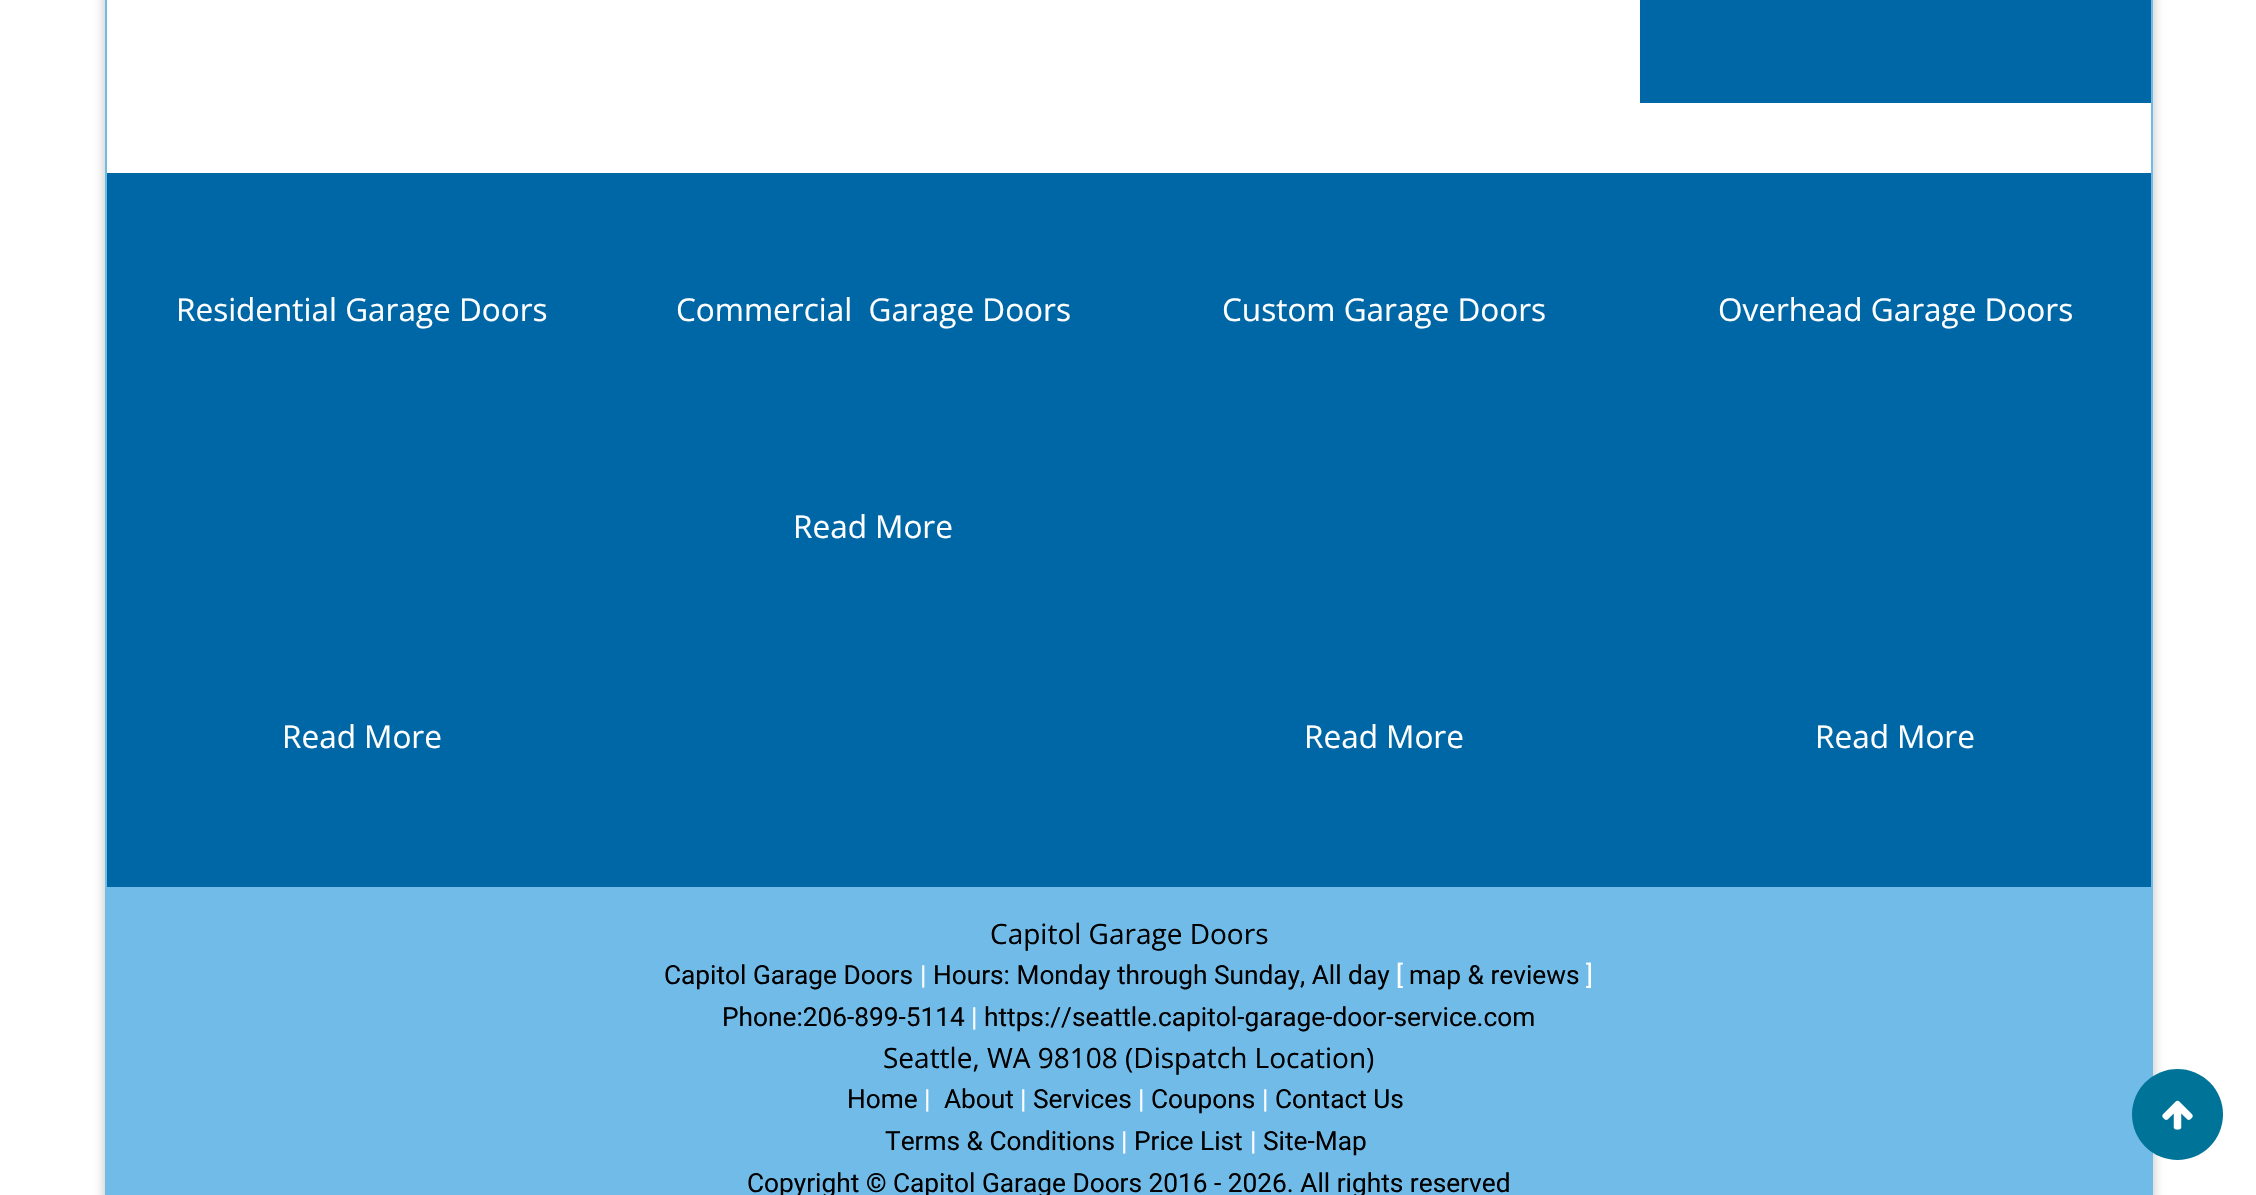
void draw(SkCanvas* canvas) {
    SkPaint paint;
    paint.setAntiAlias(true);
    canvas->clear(0xFFFFFFFF);
    canvas->save();
    canvas->clipPath(SkPathBuilder(SkPathFillType::kEvenOdd).moveTo(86, 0).lineTo(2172, 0).lineTo(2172, 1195).lineTo(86, 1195).close().moveTo(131, -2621).lineTo(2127, -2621).cubicTo(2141.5f, -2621, 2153, -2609.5f, 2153, -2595).lineTo(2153, 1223).lineTo(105, 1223).lineTo(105, -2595).cubicTo(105, -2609.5f, 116.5f, -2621, 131, -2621).close().detach(), true);
    paint.setColor(0xFFBFBFBF);
    paint.setMaskFilter(SkMaskFilter::MakeBlur(kNormal_SkBlurStyle, 6));
    canvas->drawRoundRect(SkRect::MakeXYWH(105, -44, 2048, 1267), 26, 26, paint);
    paint.setMaskFilter(nullptr);
    canvas->restore();
    paint.setStyle(SkPaint::kStroke_Style);
    paint.setStrokeWidth(2);
    paint.setColor(0xFF71BBE9);
    canvas->drawRect(SkRect::MakeXYWH(106, -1, 2046, 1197), paint);
    paint.setStyle(SkPaint::kFill_Style);
    paint.setColor(0xFF0067A7);
    canvas->drawRect(SkRect::MakeXYWH(1640, 0, 511, 103), paint);
    canvas->drawRect(SkRect::MakeXYWH(107, 173, 2044, 714), paint);
    SkFont font1(fontMgr->matchFamilyStyle("Open Sans", SkFontStyle::Normal()), 31.5f);
    font1.setSubpixel(true);
    paint.setColor(0xFFFFFFFF);
    canvas->drawString("Residential Garage Doors", 176, 321, font1, paint);
    canvas->drawString("Read More", 282, 748, font1, paint);
    canvas->drawString("Commercial  Garage Doors", 676, 321, font1, paint);
    canvas->drawString("Read More", 793, 538, font1, paint);
    canvas->drawString("Custom Garage Doors", 1222, 321, font1, paint);
    canvas->drawString("Read More", 1304, 748, font1, paint);
    canvas->drawString("Overhead Garage Doors", 1718, 321, font1, paint);
    canvas->drawString("Read More", 1815, 748, font1, paint);
    paint.setColor(0xFF71BBE9);
    canvas->drawRect(SkRect::MakeXYWH(107, 887, 2044, 308), paint);
    SkFont font2(fontMgr->matchFamilyStyle("Open Sans", SkFontStyle::Normal()), 28);
    font2.setSubpixel(true);
    paint.setColor(0xFF000000);
    canvas->drawString("Capitol Garage Doors", 990, 944, font2, paint);
    SkFont font3(fontMgr->matchFamilyStyle("Roboto", SkFontStyle::Normal()), 26.25f);
    font3.setSubpixel(true);
    canvas->drawString("Capitol Garage Doors", 664, 984, font3, paint);
    paint.setColor(0xFFFFFFFF);
    canvas->drawString("|", 920, 984, font3, paint);
    paint.setColor(0xFF000000);
    canvas->drawString("Hours: Monday through Sunday, All day", 933, 984, font3, paint);
    paint.setColor(0xFFFFFFFF);
    canvas->drawString("[", 1396, 984, font3, paint);
    paint.setColor(0xFF000000);
    canvas->drawString("map & reviews", 1409, 984, font3, paint);
    paint.setColor(0xFFFFFFFF);
    canvas->drawString("]", 1586, 984, font3, paint);
    paint.setColor(0xFF000000);
    canvas->drawString("Phone:206-899-5114", 722, 1026, font3, paint);
    paint.setColor(0xFFFFFFFF);
    canvas->drawString("|", 971, 1026, font3, paint);
    paint.setColor(0xFF000000);
    canvas->drawString("https://seattle.capitol-garage-door-service.com", 984, 1026, font3, paint);
    canvas->drawString("Seattle, WA 98108 (Dispatch Location)", 883, 1068, font2, paint);
    canvas->drawString("Home", 847, 1108, font3, paint);
    paint.setColor(0xFFFFFFFF);
    canvas->drawString("|", 924, 1108, font3, paint);
    paint.setColor(0xFF000000);
    canvas->drawString("About", 944, 1108, font3, paint);
    paint.setColor(0xFFFFFFFF);
    canvas->drawString("|", 1020, 1108, font3, paint);
    paint.setColor(0xFF000000);
    canvas->drawString("Services", 1033, 1108, font3, paint);
    paint.setColor(0xFFFFFFFF);
    canvas->drawString("|", 1138, 1108, font3, paint);
    paint.setColor(0xFF000000);
    canvas->drawString("Coupons", 1151, 1108, font3, paint);
    paint.setColor(0xFFFFFFFF);
    canvas->drawString("|", 1262, 1108, font3, paint);
    paint.setColor(0xFF000000);
    canvas->drawString("Contact Us", 1275, 1108, font3, paint);
    canvas->drawString("Terms & Conditions", 885, 1150, font3, paint);
    paint.setColor(0xFFFFFFFF);
    canvas->drawString("|", 1121, 1150, font3, paint);
    paint.setColor(0xFF000000);
    canvas->drawString("Price List", 1134, 1150, font3, paint);
    paint.setColor(0xFFFFFFFF);
    canvas->drawString("|", 1250, 1150, font3, paint);
    paint.setColor(0xFF000000);
    canvas->drawString("Site-Map", 1263, 1150, font3, paint);
    canvas->drawString("Copyright", 747, 1192, font3, paint);
    SkFont font4(fontMgr->matchFamilyStyle("Roboto", SkFontStyle::Bold()), 26.25f);
    font4.setSubpixel(true);
    canvas->drawString("©", 866, 1192, font4, paint);
    canvas->drawString("Capitol Garage Doors 2016 - 2026. All rights reserved", 893, 1192, font3, paint);
    paint.setColor(0xFF007398);
    canvas->drawCircle(2177.5f, 1114.5f, 45.5f, paint);
    canvas->drawImageRect(SkImages::DeferredFromEncodedData(SkData::MakeFromFileName("img1.png")), SkRect::MakeXYWH(2162, 1100, 31, 30), SkSamplingOptions());
}
